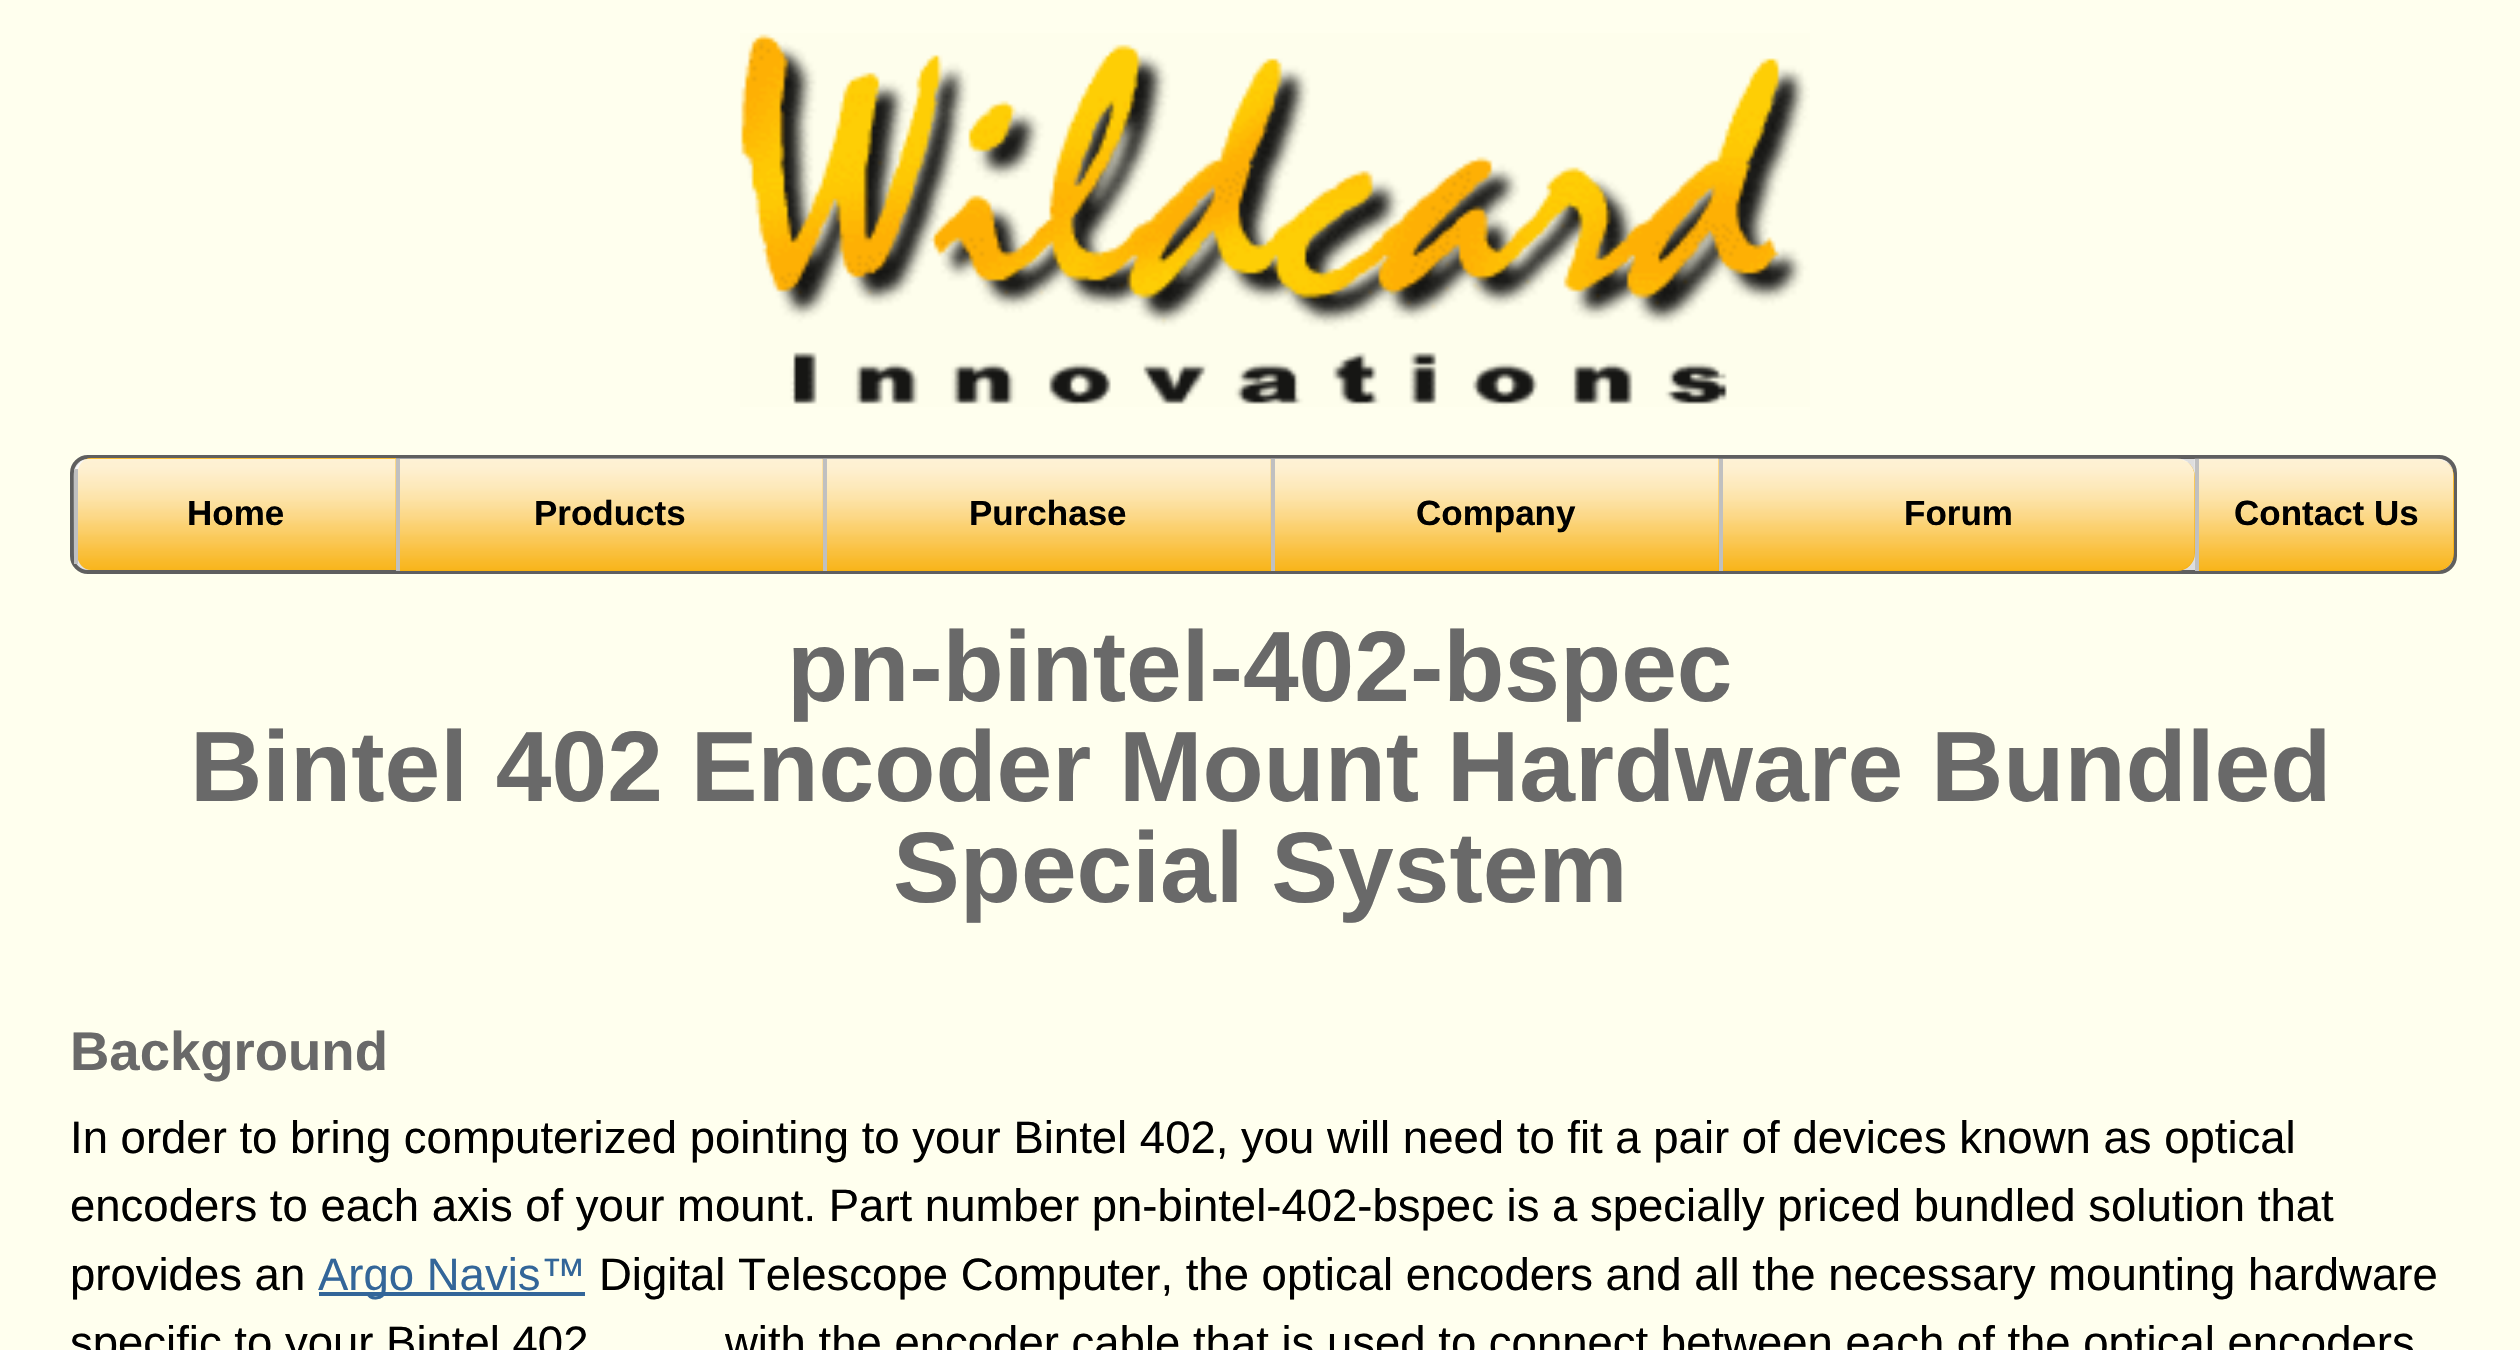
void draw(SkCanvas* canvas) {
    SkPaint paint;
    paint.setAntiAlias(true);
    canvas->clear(0xFFFFFFEE);
    canvas->drawImageRect(SkImages::DeferredFromEncodedData(SkData::MakeFromFileName("img1.png")), SkRect::MakeXYWH(740, 33, 1070, 374), SkSamplingOptions());
    paint.setColor(0xFFDEDEDE);
    canvas->drawRoundRect(SkRect::MakeXYWH(72, 457, 2383, 115), 16, 16, paint);
    paint.setStyle(SkPaint::kStroke_Style);
    paint.setStrokeWidth(4);
    paint.setColor(0xFF5F5F5F);
    canvas->drawRoundRect(SkRect::MakeXYWH(72, 457, 2383, 115), 16, 16, paint);
    paint.setStyle(SkPaint::kFill_Style);
    paint.setColor(0xFFF8AC00);
    canvas->drawPath(SkPathBuilder().moveTo(91, 458).lineTo(396, 458).lineTo(396, 570).lineTo(91, 570).cubicTo(83, 570, 77, 563, 77, 553).lineTo(77, 476).cubicTo(77, 466, 83, 458, 91, 458).close().detach(), paint);
    canvas->drawImageRect(SkImages::DeferredFromEncodedData(SkData::MakeFromFileName("img2.png")), SkRect::MakeXYWH(73, 458, 323, 112), SkSamplingOptions());
    paint.setColor(0xFFC0C0C0);
    canvas->drawRect(SkRect::MakeXYWH(74, 469, 4, 95), paint);
    SkFont font1(fontMgr->matchFamilyStyle("Liberation Sans", SkFontStyle::Bold()), 35);
    font1.setSubpixel(true);
    paint.setColor(0xFF000000);
    canvas->drawString("Home", 187, 525, font1, paint);
    paint.setColor(0xFFF8AC00);
    canvas->drawRect(SkRect::MakeXYWH(400, 459, 423, 112), paint);
    canvas->drawImageRect(SkImages::DeferredFromEncodedData(SkData::MakeFromFileName("img3.png")), SkRect::MakeXYWH(395, 458, 428, 113), SkSamplingOptions());
    paint.setColor(0xFFC0C0C0);
    canvas->drawRect(SkRect::MakeXYWH(396, 459, 4, 112), paint);
    paint.setColor(0xFF000000);
    canvas->drawString("Products", 534, 525, font1, paint);
    paint.setColor(0xFFF8AC00);
    canvas->drawRect(SkRect::MakeXYWH(827, 459, 444, 112), paint);
    canvas->drawImageRect(SkImages::DeferredFromEncodedData(SkData::MakeFromFileName("img4.png")), SkRect::MakeXYWH(822, 458, 449, 113), SkSamplingOptions());
    paint.setColor(0xFFC0C0C0);
    canvas->drawRect(SkRect::MakeXYWH(823, 459, 4, 112), paint);
    paint.setColor(0xFF000000);
    canvas->drawString("Purchase", 969, 525, font1, paint);
    paint.setColor(0xFFF8AC00);
    canvas->drawRect(SkRect::MakeXYWH(1275, 459, 444, 112), paint);
    canvas->drawImageRect(SkImages::DeferredFromEncodedData(SkData::MakeFromFileName("img4.png")), SkRect::MakeXYWH(1270, 458, 449, 113), SkSamplingOptions());
    paint.setColor(0xFFC0C0C0);
    canvas->drawRect(SkRect::MakeXYWH(1271, 459, 4, 112), paint);
    paint.setColor(0xFF000000);
    canvas->drawString("Company", 1416, 525, font1, paint);
    paint.setColor(0xFFF8AC00);
    canvas->drawPath(SkPathBuilder().moveTo(1722, 459).lineTo(2177, 459).cubicTo(2187, 459, 2195, 467, 2195, 477).lineTo(2195, 553).cubicTo(2195, 563, 2187, 571, 2177, 571).lineTo(1722, 571).close().detach(), paint);
    canvas->drawImageRect(SkImages::DeferredFromEncodedData(SkData::MakeFromFileName("img5.png")), SkRect::MakeXYWH(1718, 458, 477, 113), SkSamplingOptions());
    paint.setColor(0xFFC0C0C0);
    canvas->drawRect(SkRect::MakeXYWH(1719, 459, 4, 112), paint);
    paint.setColor(0xFF000000);
    canvas->drawString("Forum", 1904, 525, font1, paint);
    paint.setColor(0xFFF8AC00);
    canvas->drawPath(SkPathBuilder().moveTo(2198, 459).lineTo(2436, 459).cubicTo(2446, 459, 2454, 467, 2454, 477).lineTo(2454, 553).cubicTo(2454, 563, 2446, 571, 2436, 571).lineTo(2198, 571).close().detach(), paint);
    canvas->drawImageRect(SkImages::DeferredFromEncodedData(SkData::MakeFromFileName("img6.png")), SkRect::MakeXYWH(2194, 458, 260, 113), SkSamplingOptions());
    paint.setColor(0xFFC0C0C0);
    canvas->drawRect(SkRect::MakeXYWH(2195, 459, 4, 112), paint);
    paint.setColor(0xFF000000);
    canvas->drawString("Contact Us", 2234, 525, font1, paint);
    SkFont font2(fontMgr->matchFamilyStyle("Liberation Sans", SkFontStyle::Bold()), 100.1f);
    font2.setSubpixel(true);
    paint.setColor(0xFF696969);
    canvas->drawString("pn-bintel-402-bspec", 787, 701, font2, paint);
    canvas->drawString("Bintel 402 Encoder Mount Hardware Bundled", 190, 801, font2, paint);
    canvas->drawString("Special System", 893, 902, font2, paint);
    SkFont font3(fontMgr->matchFamilyStyle("Liberation Sans", SkFontStyle::Bold()), 54.5f);
    font3.setSubpixel(true);
    canvas->drawString("Background", 70, 1070, font3, paint);
    SkFont font4(fontMgr->matchFamilyStyle("Liberation Sans", SkFontStyle::Normal()), 45.5f);
    font4.setSubpixel(true);
    paint.setColor(0xFF000000);
    canvas->drawString("In order to bring computerized pointing to your Bintel 402, you will need to fit a pair of devices known as optical", 70, 1153, font4, paint);
    canvas->drawString("encoders to each axis of your mount. Part number pn-bintel-402-bspec is a specially priced bundled solution that", 70, 1221, font4, paint);
    canvas->drawString("provides an", 70, 1290, font4, paint);
    paint.setColor(0xFF336699);
    canvas->drawRect(SkRect::MakeXYWH(319, 1292, 266, 4), paint);
    canvas->drawString("Argo Navis™", 318, 1290, font4, paint);
    paint.setColor(0xFF000000);
    canvas->drawString("Digital Telescope Computer, the optical encoders and all the necessary mounting hardware", 599, 1290, font4, paint);
    canvas->drawString("specific to your Bintel 402", 70, 1358, font4, paint);
    canvas->drawString("with the encoder cable that is used to connect between each of the optical encoders", 725, 1358, font4, paint);
}
